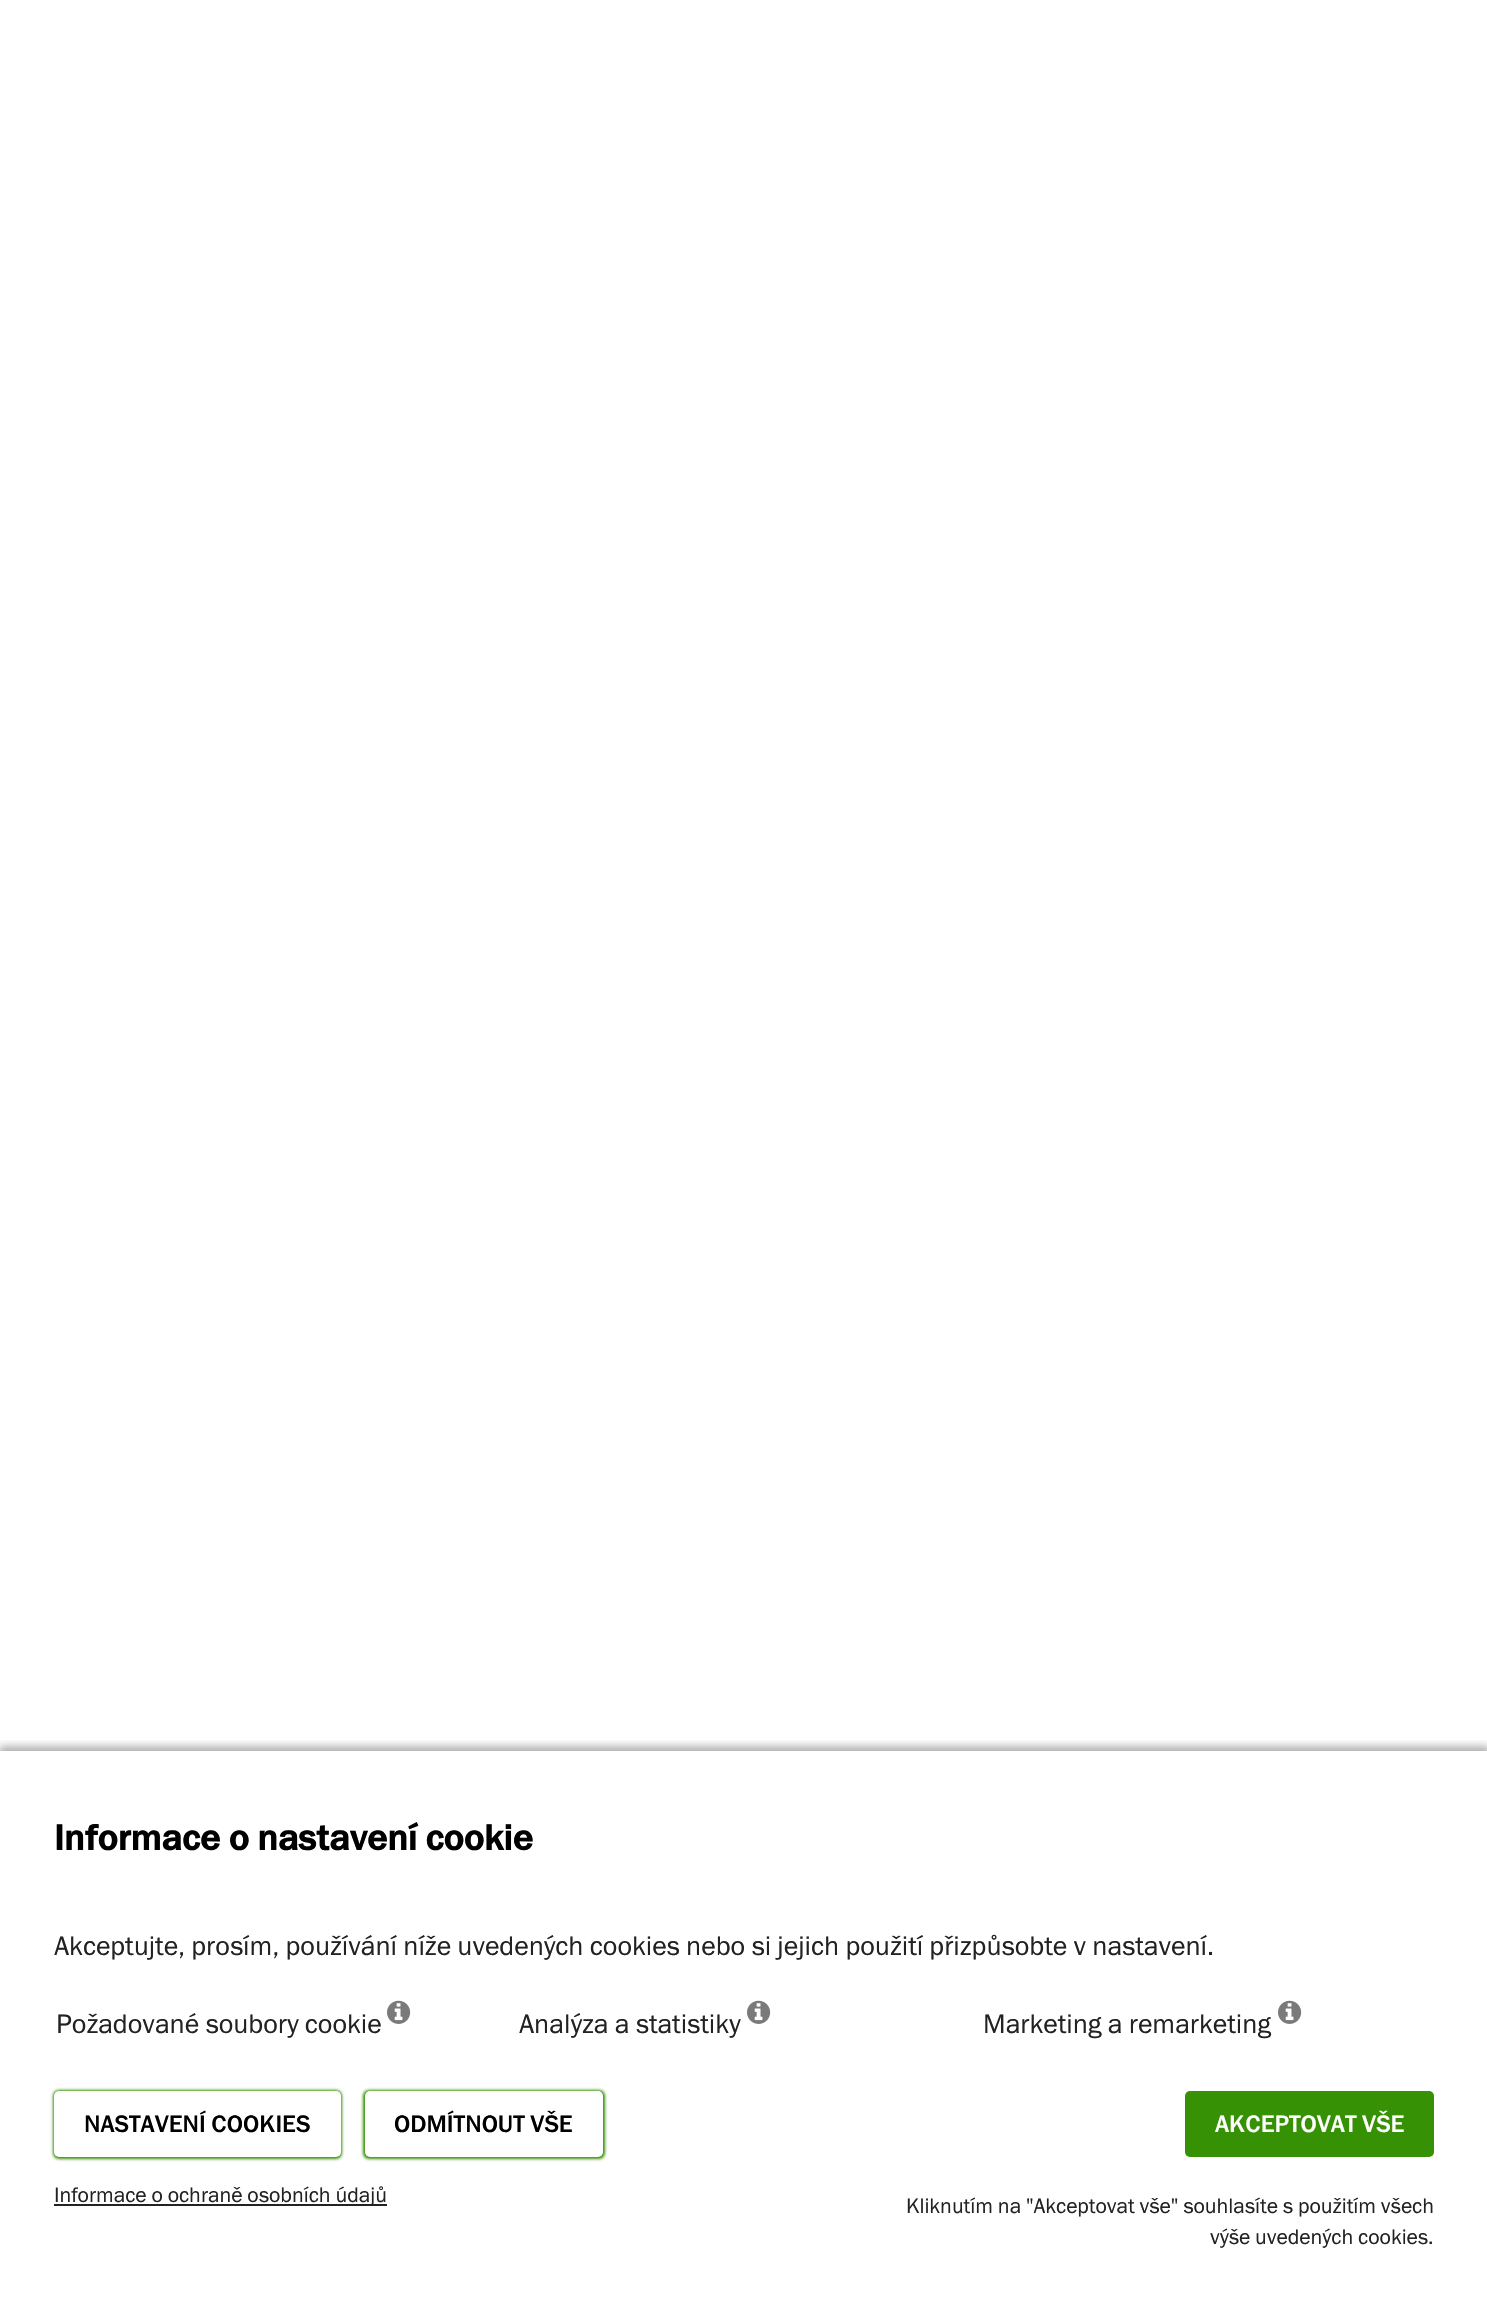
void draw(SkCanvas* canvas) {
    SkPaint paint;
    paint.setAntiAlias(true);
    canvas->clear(0xFFFFFFFF);
    canvas->save();
    canvas->clipRect(SkRect::MakeXYWH(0, 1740, 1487, 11));
    paint.setColor(0x4D000000);
    paint.setMaskFilter(SkMaskFilter::MakeBlur(kNormal_SkBlurStyle, 4));
    canvas->drawRect(SkRect::MakeXYWH(-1, 1746, 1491, 566), paint);
    paint.setMaskFilter(nullptr);
    canvas->restore();
    SkFont font1(fontMgr->matchFamilyStyle("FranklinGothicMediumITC", SkFontStyle::Bold()), 36);
    font1.setSubpixel(true);
    paint.setColor(0xFF000000);
    canvas->drawString("Informace o nastavení cookie", 54, 1850, font1, paint);
    SkFont font2(fontMgr->matchFamilyStyle("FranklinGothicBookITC", SkFontStyle::Normal()), 27);
    font2.setSubpixel(true);
    paint.setColor(0xFF222222);
    canvas->drawString("Akceptujte, prosím, používání níže uvedených cookies nebo si jejich použití přizpůsobte v nastavení.", 54, 1955, font2, paint);
    canvas->drawString("Požadované soubory cookie", 56, 2033, font2, paint);
    canvas->drawImageRect(SkImages::DeferredFromEncodedData(SkData::MakeFromFileName("img1.png")), SkRect::MakeXYWH(387, 2000, 24, 24), SkSamplingOptions());
    canvas->drawString("Analýza a statistiky", 519, 2033, font2, paint);
    canvas->drawImageRect(SkImages::DeferredFromEncodedData(SkData::MakeFromFileName("img1.png")), SkRect::MakeXYWH(747, 2000, 24, 24), SkSamplingOptions());
    canvas->drawString("Marketing a remarketing", 983, 2033, font2, paint);
    canvas->drawImageRect(SkImages::DeferredFromEncodedData(SkData::MakeFromFileName("img1.png")), SkRect::MakeXYWH(1278, 2000, 24, 24), SkSamplingOptions());
    paint.setColor(0xFF369105);
    paint.setMaskFilter(SkMaskFilter::MakeBlur(kNormal_SkBlurStyle, 1.5f));
    canvas->drawRoundRect(SkRect::MakeXYWH(53, 2090, 289, 69), 6, 6, paint);
    paint.setMaskFilter(nullptr);
    paint.setColor(0xFFFFFFFF);
    canvas->drawRoundRect(SkRect::MakeXYWH(54, 2091, 287, 66), 5, 5, paint);
    SkFont font3(fontMgr->matchFamilyStyle("FranklinGothicMediumITC", SkFontStyle(500, SkFontStyle::kNormal_Width, SkFontStyle::kUpright_Slant)), 24);
    font3.setSubpixel(true);
    paint.setColor(0xFF000000);
    canvas->drawString("NASTAVENÍ COOKIES", 84, 2132, font3, paint);
    paint.setColor(0xFF369105);
    paint.setMaskFilter(SkMaskFilter::MakeBlur(kNormal_SkBlurStyle, 1.5f));
    canvas->drawRoundRect(SkRect::MakeXYWH(363, 2090, 242, 69), 6, 6, paint);
    paint.setMaskFilter(nullptr);
    paint.setColor(0xFFFFFFFF);
    canvas->drawRoundRect(SkRect::MakeXYWH(365, 2091, 238, 66), 5, 5, paint);
    paint.setColor(0xFF000000);
    canvas->drawString("ODMÍTNOUT VŠE", 394, 2132, font3, paint);
    paint.setColor(0xFF222222);
    canvas->drawRect(SkRect::MakeXYWH(54, 2204, 333, 2), paint);
    SkFont font4(fontMgr->matchFamilyStyle("FranklinGothicBookITC", SkFontStyle::Normal()), 21);
    font4.setSubpixel(true);
    canvas->drawString("Informace o ochraně osobních údajů", 54, 2202, font4, paint);
    paint.setColor(0xFF369105);
    canvas->drawRoundRect(SkRect::MakeXYWH(1185, 2091, 249, 66), 5, 5, paint);
    paint.setColor(0xFFFFFFFF);
    canvas->drawString("AKCEPTOVAT VŠE", 1215, 2132, font3, paint);
    paint.setColor(0xFF222222);
    canvas->drawString("Kliknutím na \"Akceptovat vše\" souhlasíte s použitím všech", 906, 2213, font4, paint);
    canvas->drawString("výše uvedených cookies.", 1210, 2244, font4, paint);
}
